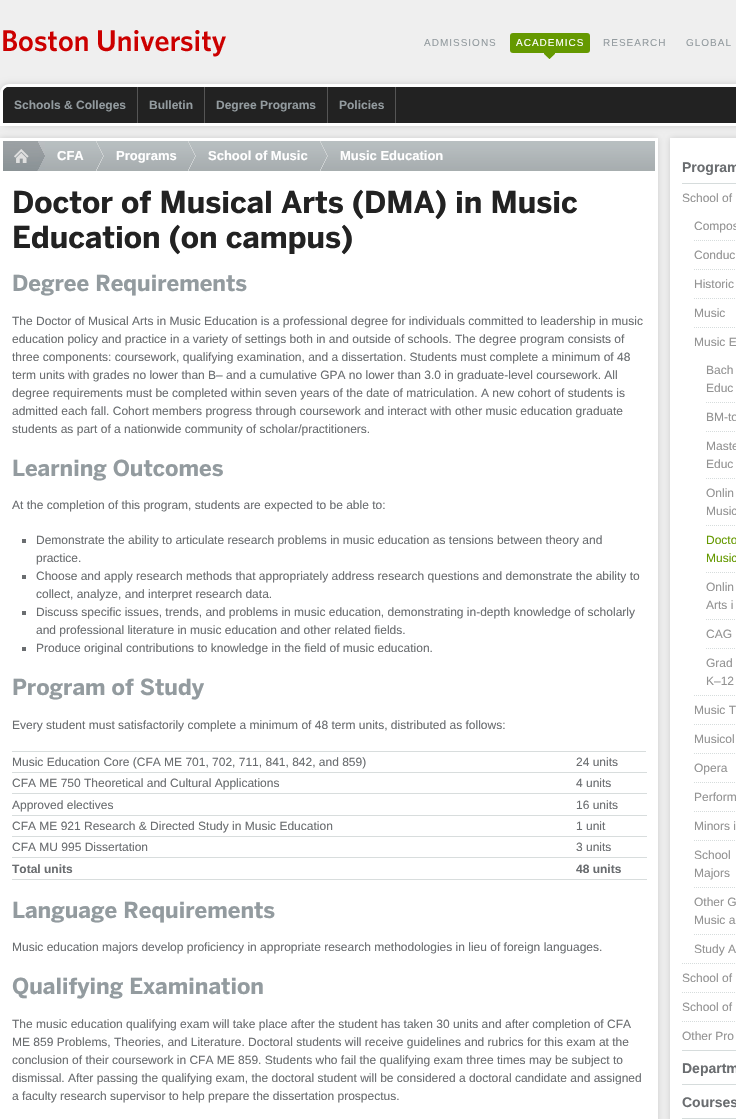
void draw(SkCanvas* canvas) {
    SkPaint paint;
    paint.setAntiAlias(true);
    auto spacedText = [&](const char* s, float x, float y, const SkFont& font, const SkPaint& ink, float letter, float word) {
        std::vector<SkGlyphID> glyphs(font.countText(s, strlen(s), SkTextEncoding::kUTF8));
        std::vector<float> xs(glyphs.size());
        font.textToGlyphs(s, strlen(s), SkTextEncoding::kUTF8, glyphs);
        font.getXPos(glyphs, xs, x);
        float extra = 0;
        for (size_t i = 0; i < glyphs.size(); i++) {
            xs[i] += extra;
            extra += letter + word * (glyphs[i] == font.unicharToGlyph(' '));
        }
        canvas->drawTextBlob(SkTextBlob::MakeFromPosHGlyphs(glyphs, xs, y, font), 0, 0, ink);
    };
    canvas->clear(0xFFEFEFEF);
    canvas->drawImageRect(SkImages::DeferredFromEncodedData(SkData::MakeFromFileName("img1.png")), SkRect::MakeXYWH(3, 30, 223, 27), SkSamplingOptions());
    SkFont font1(fontMgr->matchFamilyStyle("Liberation Sans", SkFontStyle::Normal()), 10);
    font1.setSubpixel(true);
    paint.setColor(0xFF939B9F);
    spacedText("ADMISSIONS", 424, 46, font1, paint, 1, 0);
    canvas->drawImageRect(SkImages::DeferredFromEncodedData(SkData::MakeFromFileName("img2.png")), SkRect::MakeXYWH(544, 53, 11, 7), SkSamplingOptions());
    paint.setColor(0xFF659900);
    canvas->drawRoundRect(SkRect::MakeXYWH(510, 33, 80, 20), 3, 3, paint);
    paint.setColor(0xFFFFFFFF);
    spacedText("ACADEMICS", 516, 46, font1, paint, 1, 0);
    paint.setColor(0xFF939B9F);
    spacedText("RESEARCH", 603, 46, font1, paint, 1, 0);
    spacedText("GLOBAL", 686, 46, font1, paint, 1, 0);
    paint.setColor(0xFFCCCCCC);
    paint.setMaskFilter(SkMaskFilter::MakeBlur(kNormal_SkBlurStyle, 3));
    canvas->drawRoundRect(SkRect::MakeXYWH(0, 84, 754, 42), 9, 9, paint);
    paint.setMaskFilter(nullptr);
    paint.setStyle(SkPaint::kStroke_Style);
    paint.setStrokeWidth(3);
    paint.setColor(0xFFFFFFFF);
    canvas->drawPath(SkPathBuilder().moveTo(9, 85.5f).lineTo(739, 85.5f).cubicTo(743, 85.5f, 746.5f, 89, 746.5f, 93).lineTo(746.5f, 124.5f).lineTo(1.5f, 124.5f).lineTo(1.5f, 93).cubicTo(1.5f, 89, 5, 85.5f, 9, 85.5f).close().detach(), paint);
    paint.setStyle(SkPaint::kFill_Style);
    paint.setColor(0xFF222222);
    canvas->drawPath(SkPathBuilder().moveTo(9, 87).lineTo(736, 87).cubicTo(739.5f, 87, 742, 89.5f, 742, 93).lineTo(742, 123).lineTo(3, 123).lineTo(3, 93).cubicTo(3, 89.5f, 5.5f, 87, 9, 87).close().detach(), paint);
    canvas->drawPath(SkPathBuilder().moveTo(9, 87).lineTo(138, 87).lineTo(138, 123).lineTo(3, 123).lineTo(3, 93).cubicTo(3, 89.5f, 5.5f, 87, 9, 87).close().detach(), paint);
    paint.setColor(0xFF555555);
    canvas->drawRect(SkRect::MakeXYWH(137, 87, 1, 36), paint);
    SkFont font2(fontMgr->matchFamilyStyle("Liberation Sans", SkFontStyle::Bold()), 12);
    font2.setSubpixel(true);
    paint.setColor(0xFF939B9F);
    canvas->drawString("Schools & Colleges", 14, 109, font2, paint);
    paint.setColor(0xFF555555);
    canvas->drawRect(SkRect::MakeXYWH(204, 87, 1, 36), paint);
    paint.setColor(0xFF939B9F);
    canvas->drawString("Bulletin", 149, 109, font2, paint);
    paint.setColor(0xFF555555);
    canvas->drawRect(SkRect::MakeXYWH(327, 87, 1, 36), paint);
    paint.setColor(0xFF939B9F);
    canvas->drawString("Degree Programs", 216, 109, font2, paint);
    paint.setColor(0xFF555555);
    canvas->drawRect(SkRect::MakeXYWH(395, 87, 1, 36), paint);
    paint.setColor(0xFF939B9F);
    canvas->drawString("Policies", 339, 109, font2, paint);
    paint.setColor(0xFFCCCCCC);
    paint.setMaskFilter(SkMaskFilter::MakeBlur(kNormal_SkBlurStyle, 3));
    canvas->drawRect(SkRect::MakeXYWH(0, 138, 658, 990), paint);
    paint.setMaskFilter(nullptr);
    paint.setColor(0xFFFFFFFF);
    canvas->drawRect(SkRect::MakeXYWH(0, 138, 658, 981), paint);
    canvas->drawImageRect(SkImages::DeferredFromEncodedData(SkData::MakeFromFileName("img3.png")), SkRect::MakeXYWH(45, 141, 610, 30), SkSamplingOptions());
    canvas->drawImageRect(SkImages::DeferredFromEncodedData(SkData::MakeFromFileName("img4.png")), SkRect::MakeXYWH(3, 141, 42, 30), SkSamplingOptions());
    SkFont font3(fontMgr->matchFamilyStyle("Liberation Sans", SkFontStyle::Bold()), 13);
    font3.setSubpixel(true);
    canvas->drawString("CFA", 57, 160, font3, paint);
    canvas->drawImageRect(SkImages::DeferredFromEncodedData(SkData::MakeFromFileName("img5.png")), SkRect::MakeXYWH(96, 141, 8, 30), SkSamplingOptions());
    canvas->drawString("Programs", 116, 160, font3, paint);
    canvas->drawImageRect(SkImages::DeferredFromEncodedData(SkData::MakeFromFileName("img5.png")), SkRect::MakeXYWH(188, 141, 8, 30), SkSamplingOptions());
    canvas->drawString("School of Music", 208, 160, font3, paint);
    canvas->drawImageRect(SkImages::DeferredFromEncodedData(SkData::MakeFromFileName("img5.png")), SkRect::MakeXYWH(320, 141, 8, 30), SkSamplingOptions());
    canvas->drawString("Music Education", 340, 160, font3, paint);
    SkFont font4(fontMgr->matchFamilyStyle("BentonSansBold", SkFontStyle::Bold()), 30);
    font4.setSubpixel(true);
    paint.setColor(0xFF222222);
    canvas->drawString("Doctor of Musical Arts (DMA) in Music", 12, 213, font4, paint);
    canvas->drawString("Education (on campus)", 12, 248, font4, paint);
    SkFont font5(fontMgr->matchFamilyStyle("BentonSansBold", SkFontStyle::Bold()), 22);
    font5.setSubpixel(true);
    paint.setColor(0xFF939B9F);
    canvas->drawString("Degree Requirements", 12, 291, font5, paint);
    SkFont font6(fontMgr->matchFamilyStyle("Liberation Sans", SkFontStyle::Normal()), 12);
    font6.setSubpixel(true);
    paint.setColor(0xFF6A6D70);
    canvas->drawString("The Doctor of Musical Arts in Music Education is a professional degree for individuals committed to leadership in music", 12, 325, font6, paint);
    canvas->drawString("education policy and practice in a variety of settings both in and outside of schools. The degree program consists of", 12, 343, font6, paint);
    canvas->drawString("three components: coursework, qualifying examination, and a dissertation. Students must complete a minimum of 48", 12, 361, font6, paint);
    canvas->drawString("term units with grades no lower than B– and a cumulative GPA no lower than 3.0 in graduate-level coursework. All", 12, 379, font6, paint);
    canvas->drawString("degree requirements must be completed within seven years of the date of matriculation. A new cohort of students is", 12, 397, font6, paint);
    canvas->drawString("admitted each fall. Cohort members progress through coursework and interact with other music education graduate", 12, 415, font6, paint);
    canvas->drawString("students as part of a nationwide community of scholar/practitioners.", 12, 433, font6, paint);
    paint.setColor(0xFF939B9F);
    canvas->drawString("Learning Outcomes", 12, 476, font5, paint);
    paint.setColor(0xFF6A6D70);
    canvas->drawString("At the completion of this program, students are expected to be able to:", 12, 509, font6, paint);
    canvas->drawRect(SkRect::MakeXYWH(22, 539, 4, 4), paint);
    canvas->drawString("Demonstrate the ability to articulate research problems in music education as tensions between theory and", 36, 544, font6, paint);
    canvas->drawString("practice.", 36, 562, font6, paint);
    canvas->drawRect(SkRect::MakeXYWH(22, 575, 4, 4), paint);
    canvas->drawString("Choose and apply research methods that appropriately address research questions and demonstrate the ability to", 36, 580, font6, paint);
    canvas->drawString("collect, analyze, and interpret research data.", 36, 598, font6, paint);
    canvas->drawRect(SkRect::MakeXYWH(22, 611, 4, 4), paint);
    canvas->drawString("Discuss specific issues, trends, and problems in music education, demonstrating in-depth knowledge of scholarly", 36, 616, font6, paint);
    canvas->drawString("and professional literature in music education and other related fields.", 36, 634, font6, paint);
    canvas->drawRect(SkRect::MakeXYWH(22, 647, 4, 4), paint);
    canvas->drawString("Produce original contributions to knowledge in the field of music education.", 36, 652, font6, paint);
    paint.setColor(0xFF939B9F);
    canvas->drawString("Program of Study", 12, 695, font5, paint);
    paint.setColor(0xFF6A6D70);
    canvas->drawString("Every student must satisfactorily complete a minimum of 48 term units, distributed as follows:", 12, 729, font6, paint);
    paint.setColor(0xFFD8DDDD);
    canvas->drawRect(SkRect::MakeXYWH(12, 751, 634, 1), paint);
    paint.setColor(0xFF6A6D70);
    canvas->drawString("Music Education Core (CFA ME 701, 702, 711, 841, 842, and 859)", 12, 766, font6, paint);
    paint.setColor(0xFFD8DDDD);
    canvas->drawRect(SkRect::MakeXYWH(12, 772, 635, 1), paint);
    paint.setColor(0xFF6A6D70);
    canvas->drawString("24 units", 576, 766, font6, paint);
    canvas->drawString("CFA ME 750 Theoretical and Cultural Applications", 12, 787, font6, paint);
    paint.setColor(0xFFD8DDDD);
    canvas->drawRect(SkRect::MakeXYWH(12, 793, 635, 1), paint);
    paint.setColor(0xFF6A6D70);
    canvas->drawString("4 units", 576, 787, font6, paint);
    canvas->drawString("Approved electives", 12, 809, font6, paint);
    paint.setColor(0xFFD8DDDD);
    canvas->drawRect(SkRect::MakeXYWH(12, 815, 635, 1), paint);
    paint.setColor(0xFF6A6D70);
    canvas->drawString("16 units", 576, 809, font6, paint);
    canvas->drawString("CFA ME 921 Research & Directed Study in Music Education", 12, 830, font6, paint);
    paint.setColor(0xFFD8DDDD);
    canvas->drawRect(SkRect::MakeXYWH(12, 836, 635, 1), paint);
    paint.setColor(0xFF6A6D70);
    canvas->drawString("1 unit", 576, 830, font6, paint);
    canvas->drawString("CFA MU 995 Dissertation", 12, 851, font6, paint);
    paint.setColor(0xFFD8DDDD);
    canvas->drawRect(SkRect::MakeXYWH(12, 857, 635, 1), paint);
    paint.setColor(0xFF6A6D70);
    canvas->drawString("3 units", 576, 851, font6, paint);
    canvas->drawString("Total units", 12, 873, font2, paint);
    paint.setColor(0xFFD8DDDD);
    canvas->drawRect(SkRect::MakeXYWH(12, 879, 635, 1), paint);
    paint.setColor(0xFF6A6D70);
    canvas->drawString("48 units", 576, 873, font2, paint);
    paint.setColor(0xFF939B9F);
    canvas->drawString("Language Requirements", 12, 918, font5, paint);
    paint.setColor(0xFF6A6D70);
    canvas->drawString("Music education majors develop proficiency in appropriate research methodologies in lieu of foreign languages.", 12, 951, font6, paint);
    paint.setColor(0xFF939B9F);
    canvas->drawString("Qualifying Examination", 12, 994, font5, paint);
    paint.setColor(0xFF6A6D70);
    canvas->drawString("The music education qualifying exam will take place after the student has taken 30 units and after completion of CFA", 12, 1028, font6, paint);
    canvas->drawString("ME 859 Problems, Theories, and Literature. Doctoral students will receive guidelines and rubrics for this exam at the", 12, 1046, font6, paint);
    canvas->drawString("conclusion of their coursework in CFA ME 859. Students who fail the qualifying exam three times may be subject to", 12, 1064, font6, paint);
    canvas->drawString("dismissal. After passing the qualifying exam, the doctoral student will be considered a doctoral candidate and assigned", 12, 1082, font6, paint);
    canvas->drawString("a faculty research supervisor to help prepare the dissertation prospectus.", 12, 1100, font6, paint);
    paint.setColor(0xFFCCCCCC);
    paint.setMaskFilter(SkMaskFilter::MakeBlur(kNormal_SkBlurStyle, 3));
    canvas->drawRect(SkRect::MakeXYWH(670, 138, 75, 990), paint);
    paint.setMaskFilter(nullptr);
    paint.setColor(0xFFFFFFFF);
    canvas->drawRect(SkRect::MakeXYWH(670, 138, 66, 981), paint);
    SkFont font7(fontMgr->matchFamilyStyle("Liberation Sans", SkFontStyle::Bold()), 14);
    font7.setSubpixel(true);
    paint.setColor(0xFF6A6D70);
    canvas->drawString("Program", 682, 172, font7, paint);
    paint.setColor(0xFFD6DCDC);
    canvas->drawRect(SkRect::MakeXYWH(682, 183, 54, 1), paint);
    paint.setColor(0xFF939393);
    canvas->drawString("School of", 682, 202, font6, paint);
    canvas->drawString("Compos", 694, 230, font6, paint);
    paint.setStyle(SkPaint::kStroke_Style);
    paint.setStrokeWidth(1);
    paint.setColor(0xFFD6DCDC);
    paint.setPathEffect(SkDashPathEffect::Make({{1, 1}}, 0));
    canvas->drawPath(SkPathBuilder().moveTo(694, 240.5f).lineTo(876, 240.5f).moveTo(694, 269.5f).lineTo(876, 269.5f).moveTo(694, 298.5f).lineTo(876, 298.5f).detach(), paint);
    paint.setPathEffect(nullptr);
    paint.setStyle(SkPaint::kFill_Style);
    paint.setColor(0xFF939393);
    canvas->drawString("Conduc", 694, 259, font6, paint);
    canvas->drawString("Historic", 694, 288, font6, paint);
    canvas->drawString("Music", 694, 317, font6, paint);
    paint.setStyle(SkPaint::kStroke_Style);
    paint.setColor(0xFFD6DCDC);
    paint.setPathEffect(SkDashPathEffect::Make({{1, 1}}, 0));
    canvas->drawPath(SkPathBuilder().moveTo(694, 327.5f).lineTo(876, 327.5f).detach(), paint);
    paint.setPathEffect(nullptr);
    paint.setStyle(SkPaint::kFill_Style);
    paint.setColor(0xFF939393);
    canvas->drawString("Music E", 694, 346, font6, paint);
    canvas->drawString("Bach", 706, 374, font6, paint);
    canvas->drawString("Educ", 706, 392, font6, paint);
    paint.setStyle(SkPaint::kStroke_Style);
    paint.setColor(0xFFD6DCDC);
    paint.setPathEffect(SkDashPathEffect::Make({{1, 1}}, 0));
    canvas->drawPath(SkPathBuilder().moveTo(706, 402.5f).lineTo(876, 402.5f).moveTo(706, 431.5f).lineTo(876, 431.5f).detach(), paint);
    paint.setPathEffect(nullptr);
    paint.setStyle(SkPaint::kFill_Style);
    paint.setColor(0xFF939393);
    canvas->drawString("BM-to", 706, 421, font6, paint);
    canvas->drawString("Maste", 706, 450, font6, paint);
    canvas->drawString("Educ", 706, 468, font6, paint);
    paint.setStyle(SkPaint::kStroke_Style);
    paint.setColor(0xFFD6DCDC);
    paint.setPathEffect(SkDashPathEffect::Make({{1, 1}}, 0));
    canvas->drawPath(SkPathBuilder().moveTo(706, 478.5f).lineTo(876, 478.5f).moveTo(706, 525.5f).lineTo(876, 525.5f).detach(), paint);
    paint.setPathEffect(nullptr);
    paint.setStyle(SkPaint::kFill_Style);
    paint.setColor(0xFF939393);
    canvas->drawString("Onlin", 706, 497, font6, paint);
    canvas->drawString("Music", 706, 515, font6, paint);
    paint.setColor(0xFF659900);
    canvas->drawString("Docto", 706, 544, font6, paint);
    canvas->drawString("Music", 706, 562, font6, paint);
    paint.setStyle(SkPaint::kStroke_Style);
    paint.setColor(0xFFD6DCDC);
    paint.setPathEffect(SkDashPathEffect::Make({{1, 1}}, 0));
    canvas->drawPath(SkPathBuilder().moveTo(706, 572.5f).lineTo(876, 572.5f).moveTo(706, 619.5f).lineTo(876, 619.5f).detach(), paint);
    paint.setPathEffect(nullptr);
    paint.setStyle(SkPaint::kFill_Style);
    paint.setColor(0xFF939393);
    canvas->drawString("Onlin", 706, 591, font6, paint);
    canvas->drawString("Arts i", 706, 609, font6, paint);
    canvas->drawString("CAG", 706, 638, font6, paint);
    paint.setStyle(SkPaint::kStroke_Style);
    paint.setColor(0xFFD6DCDC);
    paint.setPathEffect(SkDashPathEffect::Make({{1, 1}}, 0));
    canvas->drawPath(SkPathBuilder().moveTo(706, 648.5f).lineTo(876, 648.5f).moveTo(694, 695.5f).lineTo(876, 695.5f).detach(), paint);
    paint.setPathEffect(nullptr);
    paint.setStyle(SkPaint::kFill_Style);
    paint.setColor(0xFF939393);
    canvas->drawString("Grad", 706, 667, font6, paint);
    canvas->drawString("K–12", 706, 685, font6, paint);
    canvas->drawString("Music T", 694, 714, font6, paint);
    paint.setStyle(SkPaint::kStroke_Style);
    paint.setColor(0xFFD6DCDC);
    paint.setPathEffect(SkDashPathEffect::Make({{1, 1}}, 0));
    canvas->drawPath(SkPathBuilder().moveTo(694, 724.5f).lineTo(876, 724.5f).moveTo(694, 753.5f).lineTo(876, 753.5f).moveTo(694, 782.5f).lineTo(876, 782.5f).detach(), paint);
    paint.setPathEffect(nullptr);
    paint.setStyle(SkPaint::kFill_Style);
    paint.setColor(0xFF939393);
    canvas->drawString("Musicol", 694, 743, font6, paint);
    canvas->drawString("Opera", 694, 772, font6, paint);
    canvas->drawString("Perform", 694, 801, font6, paint);
    paint.setStyle(SkPaint::kStroke_Style);
    paint.setColor(0xFFD6DCDC);
    paint.setPathEffect(SkDashPathEffect::Make({{1, 1}}, 0));
    canvas->drawPath(SkPathBuilder().moveTo(694, 811.5f).lineTo(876, 811.5f).moveTo(694, 840.5f).lineTo(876, 840.5f).detach(), paint);
    paint.setPathEffect(nullptr);
    paint.setStyle(SkPaint::kFill_Style);
    paint.setColor(0xFF939393);
    canvas->drawString("Minors i", 694, 830, font6, paint);
    canvas->drawString("School", 694, 859, font6, paint);
    canvas->drawString("Majors", 694, 877, font6, paint);
    paint.setStyle(SkPaint::kStroke_Style);
    paint.setColor(0xFFD6DCDC);
    paint.setPathEffect(SkDashPathEffect::Make({{1, 1}}, 0));
    canvas->drawPath(SkPathBuilder().moveTo(694, 887.5f).lineTo(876, 887.5f).moveTo(694, 934.5f).lineTo(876, 934.5f).detach(), paint);
    paint.setPathEffect(nullptr);
    paint.setStyle(SkPaint::kFill_Style);
    paint.setColor(0xFF939393);
    canvas->drawString("Other G", 694, 906, font6, paint);
    canvas->drawString("Music a", 694, 924, font6, paint);
    canvas->drawString("Study A", 694, 953, font6, paint);
    paint.setStyle(SkPaint::kStroke_Style);
    paint.setColor(0xFFD6DCDC);
    paint.setPathEffect(SkDashPathEffect::Make({{1, 1}}, 0));
    canvas->drawPath(SkPathBuilder().moveTo(682, 963.5f).lineTo(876, 963.5f).moveTo(682, 992.5f).lineTo(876, 992.5f).moveTo(682, 1021.5f).lineTo(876, 1021.5f).detach(), paint);
    paint.setPathEffect(nullptr);
    paint.setStyle(SkPaint::kFill_Style);
    paint.setColor(0xFF939393);
    canvas->drawString("School of", 682, 982, font6, paint);
    canvas->drawString("School of", 682, 1011, font6, paint);
    canvas->drawString("Other Pro", 682, 1040, font6, paint);
    paint.setColor(0xFFD6DCDC);
    canvas->drawRect(SkRect::MakeXYWH(682, 1050, 54, 1), paint);
    paint.setColor(0xFF6A6D70);
    canvas->drawString("Departm", 682, 1073, font7, paint);
    paint.setColor(0xFFD6DCDC);
    canvas->drawRect(SkRect::MakeXYWH(682, 1084, 54, 1), paint);
    paint.setColor(0xFF6A6D70);
    canvas->drawString("Courses", 682, 1107, font7, paint);
    paint.setColor(0xFFD6DCDC);
    canvas->drawRect(SkRect::MakeXYWH(682, 1118, 54, 1), paint);
}
